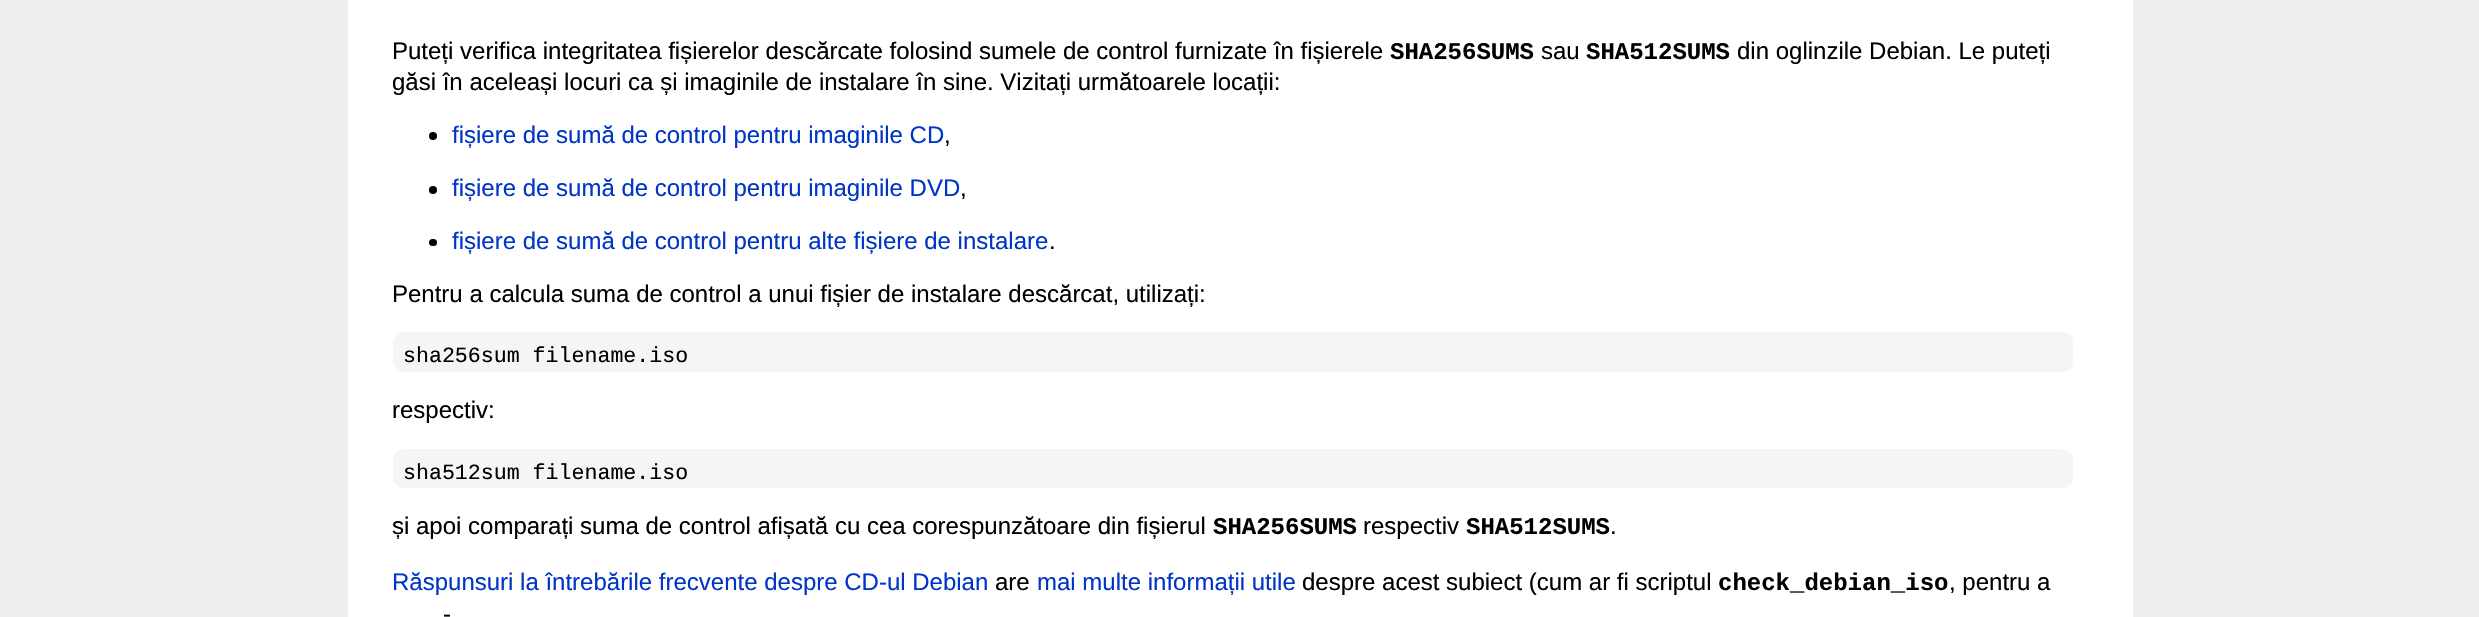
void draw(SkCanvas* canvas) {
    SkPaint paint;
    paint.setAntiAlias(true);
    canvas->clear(0xFFEEEEEE);
    paint.setColor(0xFFFFFFFF);
    canvas->drawRect(SkRect::MakeXYWH(348, 0, 1785, 617), paint);
    SkFont font1(fontMgr->matchFamilyStyle("Liberation Sans", SkFontStyle::Normal()), 24);
    font1.setSubpixel(true);
    paint.setColor(0xFF000000);
    canvas->drawString("Puteți verifica integritatea fișierelor descărcate folosind sumele de control furnizate în fișierele", 392, 59, font1, paint);
    SkFont font2(fontMgr->matchFamilyStyle("Liberation Mono", SkFontStyle::Bold()), 24);
    font2.setSubpixel(true);
    canvas->drawString("SHA256SUMS", 1390, 59, font2, paint);
    canvas->drawString("sau", 1541, 59, font1, paint);
    canvas->drawString("SHA512SUMS", 1586, 59, font2, paint);
    canvas->drawString("din oglinzile Debian. Le puteți", 1737, 59, font1, paint);
    canvas->drawString("găsi în aceleași locuri ca și imaginile de instalare în sine. Vizitați următoarele locații:", 392, 90, font1, paint);
    canvas->drawCircle(433, 136, 4, paint);
    paint.setColor(0xFF0035C7);
    canvas->drawString("fișiere de sumă de control pentru imaginile CD", 452, 143, font1, paint);
    paint.setColor(0xFF000000);
    canvas->drawString(",", 944, 143, font1, paint);
    canvas->drawCircle(433, 190, 4, paint);
    paint.setColor(0xFF0035C7);
    canvas->drawString("fișiere de sumă de control pentru imaginile DVD", 452, 196, font1, paint);
    paint.setColor(0xFF000000);
    canvas->drawString(",", 960, 196, font1, paint);
    canvas->drawRoundRect(SkRect::MakeXYWH(429, 239, 8, 7), 3.5f, 3.5f, paint);
    paint.setColor(0xFF0035C7);
    canvas->drawString("fișiere de sumă de control pentru alte fișiere de instalare", 452, 249, font1, paint);
    paint.setColor(0xFF000000);
    canvas->drawString(".", 1049, 249, font1, paint);
    canvas->drawString("Pentru a calcula suma de control a unui fișier de instalare descărcat, utilizați:", 392, 302, font1, paint);
    paint.setColor(0xFFF5F5F5);
    canvas->drawRoundRect(SkRect::MakeXYWH(393, 332, 1680, 40), 11, 11, paint);
    SkFont font3(fontMgr->matchFamilyStyle("Liberation Mono", SkFontStyle::Normal()), 21.6f);
    font3.setSubpixel(true);
    paint.setColor(0xFF000000);
    canvas->drawString("sha256sum filename.iso", 403, 362, font3, paint);
    canvas->drawString("respectiv:", 392, 418, font1, paint);
    paint.setColor(0xFFF5F5F5);
    canvas->drawRoundRect(SkRect::MakeXYWH(393, 449, 1680, 39), 11, 11, paint);
    paint.setColor(0xFF000000);
    canvas->drawString("sha512sum filename.iso", 403, 479, font3, paint);
    canvas->drawString("și apoi comparați suma de control afișată cu cea corespunzătoare din fișierul", 392, 534, font1, paint);
    canvas->drawString("SHA256SUMS", 1213, 534, font2, paint);
    canvas->drawString("respectiv", 1363, 534, font1, paint);
    canvas->drawString("SHA512SUMS", 1466, 534, font2, paint);
    canvas->drawString(".", 1610, 534, font1, paint);
    paint.setColor(0xFF0035C7);
    canvas->drawString("Răspunsuri la întrebările frecvente despre CD-ul Debian", 392, 590, font1, paint);
    paint.setColor(0xFF000000);
    canvas->drawString("are", 995, 590, font1, paint);
    paint.setColor(0xFF0035C7);
    canvas->drawString("mai multe informații utile", 1037, 590, font1, paint);
    paint.setColor(0xFF000000);
    canvas->drawString("despre acest subiect (cum ar fi scriptul", 1302, 590, font1, paint);
    canvas->drawString("check_debian_iso", 1718, 590, font2, paint);
    canvas->drawString(", pentru a", 1949, 590, font1, paint);
    canvas->drawString("-", 443, 622, font1, paint);
}
